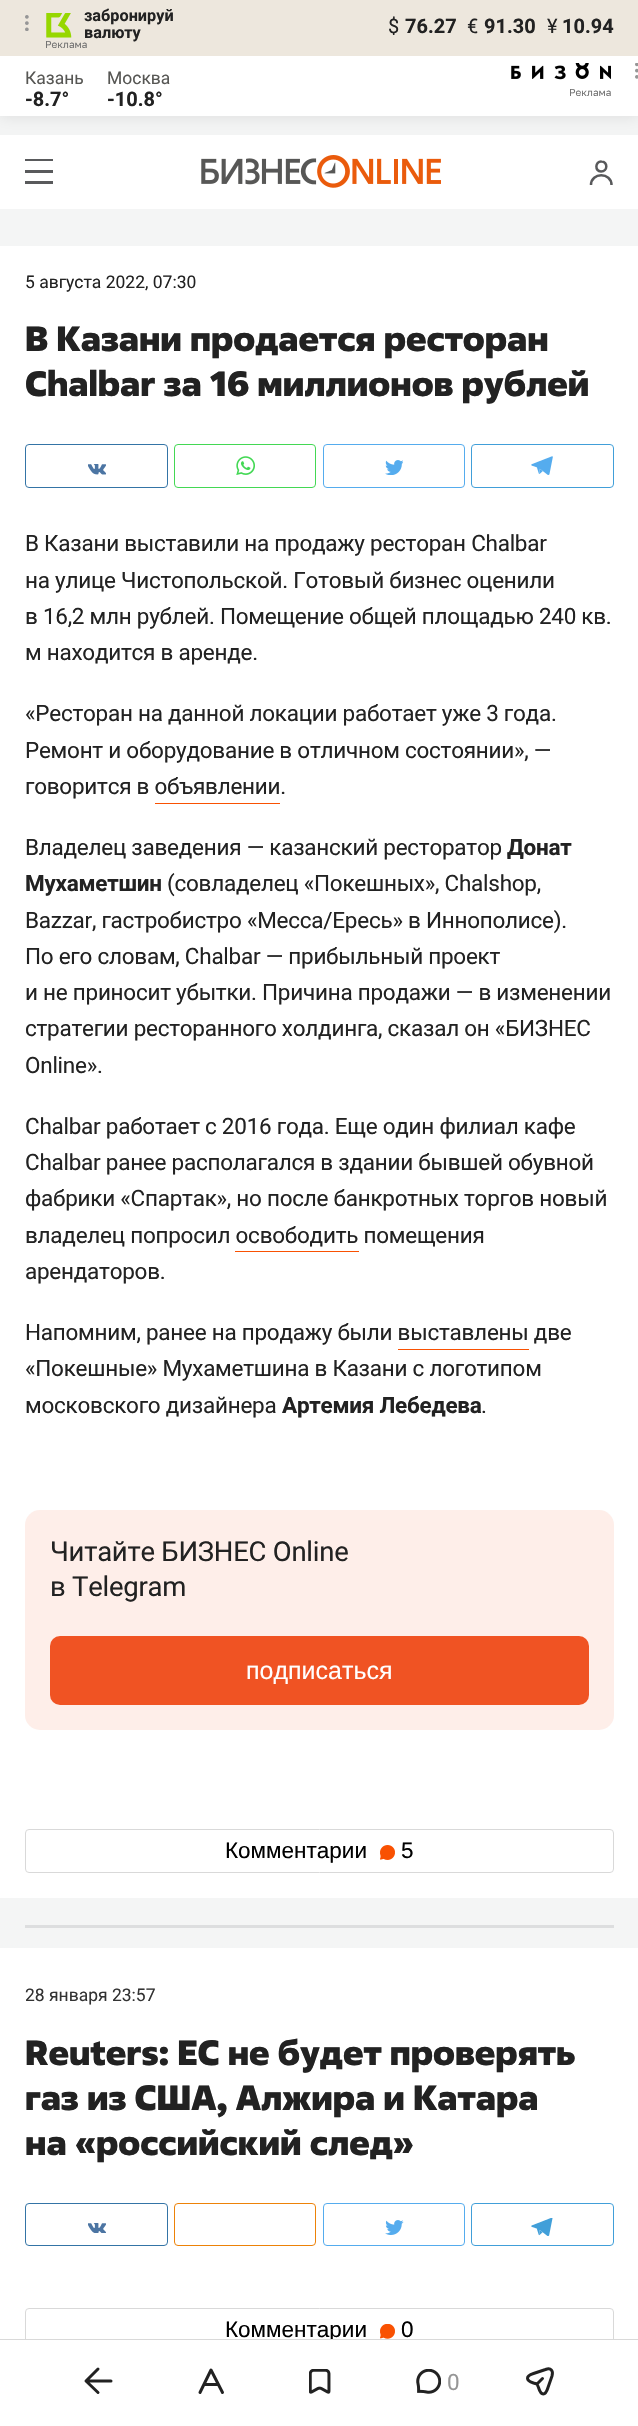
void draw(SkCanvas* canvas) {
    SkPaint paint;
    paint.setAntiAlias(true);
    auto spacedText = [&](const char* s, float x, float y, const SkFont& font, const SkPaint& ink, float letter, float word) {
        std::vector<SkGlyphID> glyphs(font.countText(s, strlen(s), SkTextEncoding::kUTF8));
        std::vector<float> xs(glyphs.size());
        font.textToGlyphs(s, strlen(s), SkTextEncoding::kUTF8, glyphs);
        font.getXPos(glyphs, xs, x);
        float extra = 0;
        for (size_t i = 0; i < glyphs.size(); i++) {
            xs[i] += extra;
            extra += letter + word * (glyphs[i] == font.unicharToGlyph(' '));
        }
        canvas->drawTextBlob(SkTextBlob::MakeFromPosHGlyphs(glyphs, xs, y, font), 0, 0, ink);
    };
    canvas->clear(0xFFF4F5F5);
    paint.setColor(0x1A000000);
    paint.setMaskFilter(SkMaskFilter::MakeBlur(kNormal_SkBlurStyle, 7.5f));
    canvas->drawRect(SkRect::MakeXYWH(0, 56, 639, 60), paint);
    paint.setMaskFilter(nullptr);
    paint.setColor(0xFFEDE7DD);
    canvas->drawRect(SkRect::MakeXYWH(0, 0, 638, 56), paint);
    canvas->drawImageRect(SkImages::DeferredFromEncodedData(SkData::MakeFromFileName("img1.png")), SkRect::MakeXYWH(25, 15, 4, 16), SkSamplingOptions());
    canvas->drawImageRect(SkImages::DeferredFromEncodedData(SkData::MakeFromFileName("img2.png")), SkRect::MakeXYWH(46, 13, 26, 25), SkSamplingOptions());
    SkFont font1(fontMgr->matchFamilyStyle("Roboto", SkFontStyle::Bold()), 16.25f);
    font1.setSubpixel(true);
    paint.setColor(0xFF222222);
    canvas->drawString("забронируй", 84, 21, font1, paint);
    canvas->drawString("валюту", 84, 38, font1, paint);
    SkFont font2(fontMgr->matchFamilyStyle("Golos", SkFontStyle::Normal()), 10);
    font2.setSubpixel(true);
    paint.setColor(0xFF717171);
    canvas->drawString("Реклама", 45, 48, font2, paint);
    SkFont font3(fontMgr->matchFamilyStyle("Roboto", SkFontStyle::Normal()), 20);
    font3.setSubpixel(true);
    paint.setColor(0xFF222222);
    canvas->drawString("$", 388, 33, font3, paint);
    SkFont font4(fontMgr->matchFamilyStyle("Roboto", SkFontStyle::Bold()), 20);
    font4.setSubpixel(true);
    canvas->drawString("76.27", 405, 33, font4, paint);
    canvas->drawString("€", 467, 33, font3, paint);
    canvas->drawString("91.30", 484, 33, font4, paint);
    canvas->drawString("¥", 547, 33, font3, paint);
    canvas->drawString("10.94", 562, 33, font4, paint);
    paint.setColor(0xFFFFFFFF);
    canvas->drawRect(SkRect::MakeXYWH(0, 56, 638, 60), paint);
    SkFont font5(fontMgr->matchFamilyStyle("Roboto", SkFontStyle::Normal()), 17.5f);
    font5.setSubpixel(true);
    paint.setColor(0xFF575754);
    canvas->drawString("Казань", 25, 84, font5, paint);
    paint.setColor(0xFF222222);
    canvas->drawString("-8.7°", 25, 106, font4, paint);
    paint.setColor(0xFF575754);
    canvas->drawString("Москва", 107, 84, font5, paint);
    paint.setColor(0xFF222222);
    canvas->drawString("-10.8°", 107, 106, font4, paint);
    canvas->drawImageRect(SkImages::DeferredFromEncodedData(SkData::MakeFromFileName("img3.png")), SkRect::MakeXYWH(511, 63, 100, 17), SkSamplingOptions());
    canvas->drawImageRect(SkImages::DeferredFromEncodedData(SkData::MakeFromFileName("img4.png")), SkRect::MakeXYWH(635, 63, 3, 16), SkSamplingOptions());
    paint.setColor(0xFF717171);
    canvas->drawString("Реклама", 569, 96, font2, paint);
    paint.setColor(0xFFFFFFFF);
    canvas->drawRect(SkRect::MakeXYWH(0, 135, 638, 74), paint);
    paint.setColor(0xFF595A5C);
    canvas->drawRect(SkRect::MakeXYWH(25, 159, 28, 25), paint);
    paint.setColor(0xFFFFFFFF);
    canvas->drawRect(SkRect::MakeXYWH(25, 161, 28, 9), paint);
    canvas->drawRect(SkRect::MakeXYWH(25, 173, 28, 8), paint);
    canvas->drawImageRect(SkImages::DeferredFromEncodedData(SkData::MakeFromFileName("img5.png")), SkRect::MakeXYWH(201, 155, 240, 33), SkSamplingOptions());
    paint.setStyle(SkPaint::kStroke_Style);
    paint.setStrokeWidth(2.5f);
    paint.setColor(0xFF58595B);
    canvas->drawPath(SkPathBuilder().moveTo(611.5f, 185).cubicTo(611.5f, 172, 591, 172, 591, 185).moveTo(601, 171.5f).cubicTo(608, 171.5f, 608, 161.5f, 601.5f, 161.5f).cubicTo(595, 161, 594.5f, 171.5f, 601, 171.5f).close().detach(), paint);
    paint.setStyle(SkPaint::kFill_Style);
    paint.setColor(0xFFFFFFFF);
    canvas->drawRect(SkRect::MakeXYWH(0, 246, 638, 1652), paint);
    paint.setColor(0xFF222222);
    canvas->drawString("5 августа 2022, 07:30", 25, 288, font5, paint);
    SkFont font6(fontMgr->matchFamilyStyle("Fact", SkFontStyle(800, SkFontStyle::kNormal_Width, SkFontStyle::kUpright_Slant)), 35);
    font6.setSubpixel(true);
    canvas->drawString("В Казани продается ресторан", 25, 351, font6, paint);
    canvas->drawString("Chalbar за 16 миллионов рублей", 25, 396, font6, paint);
    paint.setStyle(SkPaint::kStroke_Style);
    paint.setStrokeWidth(1);
    paint.setColor(0xFF3474A6);
    canvas->drawRoundRect(SkRect::MakeXYWH(25.5f, 444.5f, 142, 43), 3.5f, 3.5f, paint);
    canvas->drawImageRect(SkImages::DeferredFromEncodedData(SkData::MakeFromFileName("img6.png")), SkRect::MakeXYWH(88, 464, 18, 11), SkSamplingOptions());
    paint.setColor(0xFF43D854);
    canvas->drawRoundRect(SkRect::MakeXYWH(174.5f, 444.5f, 141, 43), 3.5f, 3.5f, paint);
    canvas->drawImageRect(SkImages::DeferredFromEncodedData(SkData::MakeFromFileName("img7.png")), SkRect::MakeXYWH(236, 456, 19, 19), SkSamplingOptions());
    paint.setColor(0xFF55ACEE);
    canvas->drawRoundRect(SkRect::MakeXYWH(323.5f, 444.5f, 141, 43), 3.5f, 3.5f, paint);
    canvas->drawImageRect(SkImages::DeferredFromEncodedData(SkData::MakeFromFileName("img8.png")), SkRect::MakeXYWH(385, 460, 18, 15), SkSamplingOptions());
    paint.setColor(0xFF419FD9);
    canvas->drawRoundRect(SkRect::MakeXYWH(471.5f, 444.5f, 142, 43), 3.5f, 3.5f, paint);
    canvas->drawImageRect(SkImages::DeferredFromEncodedData(SkData::MakeFromFileName("img9.png")), SkRect::MakeXYWH(531, 456, 22, 19), SkSamplingOptions());
    SkFont font7(fontMgr->matchFamilyStyle("Roboto", SkFontStyle::Normal()), 22.5f);
    font7.setSubpixel(true);
    paint.setStyle(SkPaint::kFill_Style);
    paint.setColor(0xFF222222);
    spacedText("В Казани выставили на продажу ресторан Chalbar", 25, 551, font7, paint, -0.25f, 0);
    spacedText("на улице Чистопольской. Готовый бизнес оценили", 25, 588, font7, paint, -0.25f, 0);
    spacedText("в 16,2 млн рублей. Помещение общей площадью 240 кв.", 25, 624, font7, paint, -0.25f, 0);
    spacedText("м находится в аренде.", 25, 660, font7, paint, -0.25f, 0);
    spacedText("«Ресторан на данной локации работает уже 3 года.", 25, 721, font7, paint, -0.25f, 0);
    spacedText("Ремонт и оборудование в отличном состоянии», —", 25, 758, font7, paint, -0.25f, 0);
    spacedText("говорится в объявлении.", 25, 794, font7, paint, -0.25f, 0);
    paint.setColor(0xFFF95102);
    canvas->drawRect(SkRect::MakeXYWH(155, 803, 125, 1), paint);
    paint.setColor(0xFF222222);
    spacedText("Владелец заведения — казанский ресторатор", 25, 855, font7, paint, -0.25f, 0);
    SkFont font8(fontMgr->matchFamilyStyle("Roboto", SkFontStyle::Bold()), 22.5f);
    font8.setSubpixel(true);
    spacedText("Донат", 507, 855, font8, paint, -0.25f, 0);
    spacedText("Мухаметшин", 25, 891, font8, paint, -0.25f, 0);
    spacedText("(совладелец «Покешных», Chalshop,", 167, 891, font7, paint, -0.25f, 0);
    spacedText("Bazzar, гастробистро «Месса/Ересь» в Иннополисе).", 25, 928, font7, paint, -0.25f, 0);
    spacedText("По его словам, Chalbar — прибыльный проект", 25, 964, font7, paint, -0.25f, 0);
    spacedText("и не приносит убытки. Причина продажи — в изменении", 25, 1000, font7, paint, -0.25f, 0);
    spacedText("стратегии ресторанного холдинга, сказал он «БИЗНЕС", 25, 1036, font7, paint, -0.25f, 0);
    spacedText("Online».", 25, 1073, font7, paint, -0.25f, 0);
    spacedText("Chalbar работает с 2016 года. Еще один филиал кафе", 25, 1134, font7, paint, -0.25f, 0);
    spacedText("Chalbar ранее располагался в здании бывшей обувной", 25, 1170, font7, paint, -0.25f, 0);
    spacedText("фабрики «Спартак», но после банкротных торгов новый", 25, 1206, font7, paint, -0.25f, 0);
    spacedText("владелец попросил освободить помещения", 25, 1243, font7, paint, -0.25f, 0);
    paint.setColor(0xFFF95102);
    canvas->drawRect(SkRect::MakeXYWH(235, 1251, 124, 1), paint);
    paint.setColor(0xFF222222);
    spacedText("арендаторов.", 25, 1279, font7, paint, -0.25f, 0);
    spacedText("Напомним, ранее на продажу были выставлены две", 25, 1340, font7, paint, -0.25f, 0);
    paint.setColor(0xFFF95102);
    canvas->drawRect(SkRect::MakeXYWH(398, 1349, 131, 1), paint);
    paint.setColor(0xFF222222);
    spacedText("«Покешные» Мухаметшина в Казани с логотипом", 25, 1376, font7, paint, -0.25f, 0);
    spacedText("московского дизайнера", 25, 1413, font7, paint, -0.25f, 0);
    spacedText("Артемия Лебедева", 282, 1413, font8, paint, -0.25f, 0);
    spacedText(".", 481, 1413, font7, paint, -0.25f, 0);
    paint.setColor(0xFFFEEEE9);
    canvas->drawRoundRect(SkRect::MakeXYWH(25, 1510, 589, 220), 15, 15, paint);
    SkFont font9(fontMgr->matchFamilyStyle("Roboto", SkFontStyle::Normal()), 27.5f);
    font9.setSubpixel(true);
    paint.setColor(0xFF222222);
    spacedText("Читайте БИЗНЕС Online", 50, 1561, font9, paint, -0.25f, 0);
    spacedText("в Telegram", 50, 1596, font9, paint, -0.25f, 0);
    paint.setColor(0xFFF05323);
    canvas->drawRoundRect(SkRect::MakeXYWH(50, 1636, 539, 69), 10, 10, paint);
    SkFont font10(fontMgr->matchFamilyStyle("Liberation Sans", SkFontStyle::Normal()), 25);
    font10.setSubpixel(true);
    paint.setColor(0xFFFFFFFF);
    canvas->drawString("подписаться", 246, 1679, font10, paint);
    paint.setStyle(SkPaint::kStroke_Style);
    paint.setColor(0xFFD9D9D9);
    canvas->drawRoundRect(SkRect::MakeXYWH(25.5f, 1829.5f, 588, 43), 3.5f, 3.5f, paint);
    SkFont font11(fontMgr->matchFamilyStyle("Liberation Sans", SkFontStyle::Normal()), 22.5f);
    font11.setSubpixel(true);
    paint.setStyle(SkPaint::kFill_Style);
    paint.setColor(0xFF000000);
    canvas->drawString("Комментарии", 225, 1858, font11, paint);
    canvas->drawImageRect(SkImages::DeferredFromEncodedData(SkData::MakeFromFileName("img10.png")), SkRect::MakeXYWH(380, 1845, 15, 15), SkSamplingOptions());
    canvas->drawString("5", 401, 1858, font11, paint);
    paint.setColor(0xFFFFFFFF);
    canvas->drawRect(SkRect::MakeXYWH(0, 1948, 638, 391), paint);
    paint.setColor(0xFFDDDEDF);
    canvas->drawRect(SkRect::MakeXYWH(25, 1925, 589, 3), paint);
    paint.setColor(0xFF333333);
    canvas->drawString("28 января 23:57", 25, 2001, font5, paint);
    paint.setColor(0xFF222222);
    canvas->drawString("Reuters: ЕС не будет проверять", 25, 2065, font6, paint);
    canvas->drawString("газ из США, Алжира и Катара", 25, 2110, font6, paint);
    canvas->drawString("на «российский след»", 25, 2155, font6, paint);
    paint.setStyle(SkPaint::kStroke_Style);
    paint.setColor(0xFF3474A6);
    canvas->drawRoundRect(SkRect::MakeXYWH(25.5f, 2203.5f, 142, 42), 3.5f, 3.5f, paint);
    canvas->drawImageRect(SkImages::DeferredFromEncodedData(SkData::MakeFromFileName("img11.png")), SkRect::MakeXYWH(88, 2223, 18, 10), SkSamplingOptions());
    paint.setColor(0xFFED8208);
    canvas->drawRoundRect(SkRect::MakeXYWH(174.5f, 2203.5f, 141, 42), 3.5f, 3.5f, paint);
    paint.setColor(0xFF55ACEE);
    canvas->drawRoundRect(SkRect::MakeXYWH(323.5f, 2203.5f, 141, 42), 3.5f, 3.5f, paint);
    canvas->drawImageRect(SkImages::DeferredFromEncodedData(SkData::MakeFromFileName("img12.png")), SkRect::MakeXYWH(385, 2220, 19, 15), SkSamplingOptions());
    paint.setColor(0xFF419FD9);
    canvas->drawRoundRect(SkRect::MakeXYWH(471.5f, 2203.5f, 142, 42), 3.5f, 3.5f, paint);
    canvas->drawImageRect(SkImages::DeferredFromEncodedData(SkData::MakeFromFileName("img13.png")), SkRect::MakeXYWH(531, 2218, 22, 18), SkSamplingOptions());
    paint.setColor(0xFFD9D9D9);
    canvas->drawRoundRect(SkRect::MakeXYWH(25.5f, 2308.5f, 588, 42), 3.5f, 3.5f, paint);
    paint.setStyle(SkPaint::kFill_Style);
    paint.setColor(0xFF000000);
    canvas->drawString("Комментарии", 225, 2337, font11, paint);
    canvas->drawImageRect(SkImages::DeferredFromEncodedData(SkData::MakeFromFileName("img14.png")), SkRect::MakeXYWH(380, 2324, 15, 15), SkSamplingOptions());
    canvas->drawString("0", 401, 2337, font11, paint);
    paint.setColor(0xFFFFFFFF);
    canvas->drawRect(SkRect::MakeXYWH(0, 2340, 638, 86), paint);
    paint.setColor(0xFFD9D9D9);
    canvas->drawRect(SkRect::MakeXYWH(0, 2339, 638, 1), paint);
    paint.setStyle(SkPaint::kStroke_Style);
    paint.setStrokeWidth(3);
    paint.setStrokeCap(SkPaint::kRound_Cap);
    paint.setStrokeJoin(SkPaint::kRound_Join);
    paint.setColor(0xFF222222);
    canvas->drawPath(SkPathBuilder().moveTo(98, 2369).lineTo(86, 2381).lineTo(98, 2392.5f).moveTo(111, 2381).lineTo(86.5f, 2381).detach(), paint);
    canvas->drawPath(SkPathBuilder().moveTo(200, 2392.5f).lineTo(211, 2370).lineTo(222.5f, 2392.5f).moveTo(204, 2384.5f).lineTo(218, 2384.5f).detach(), paint);
    canvas->drawImageRect(SkImages::DeferredFromEncodedData(SkData::MakeFromFileName("img15.png")), SkRect::MakeXYWH(309, 2369, 22, 25), SkSamplingOptions());
    canvas->drawImageRect(SkImages::DeferredFromEncodedData(SkData::MakeFromFileName("img16.png")), SkRect::MakeXYWH(416, 2369, 25, 25), SkSamplingOptions());
    paint.setStyle(SkPaint::kFill_Style);
    paint.setColor(0xFF969696);
    canvas->drawString("0", 447, 2390, font7, paint);
    paint.setStyle(SkPaint::kStroke_Style);
    paint.setColor(0xFF222222);
    canvas->drawPath(SkPathBuilder().moveTo(537.5f, 2383.5f).lineTo(542.5f, 2378.5f).moveTo(533.5f, 2373.5f).lineTo(545.5f, 2369.5f).cubicTo(551, 2367.5f, 553.5f, 2370.5f, 552, 2376).lineTo(548, 2387.5f).cubicTo(545.5f, 2396, 541, 2396, 538.5f, 2387.5f).lineTo(537, 2384).lineTo(533.5f, 2383).cubicTo(525.5f, 2380.5f, 525.5f, 2376, 533.5f, 2373.5f).close().detach(), paint);
}
